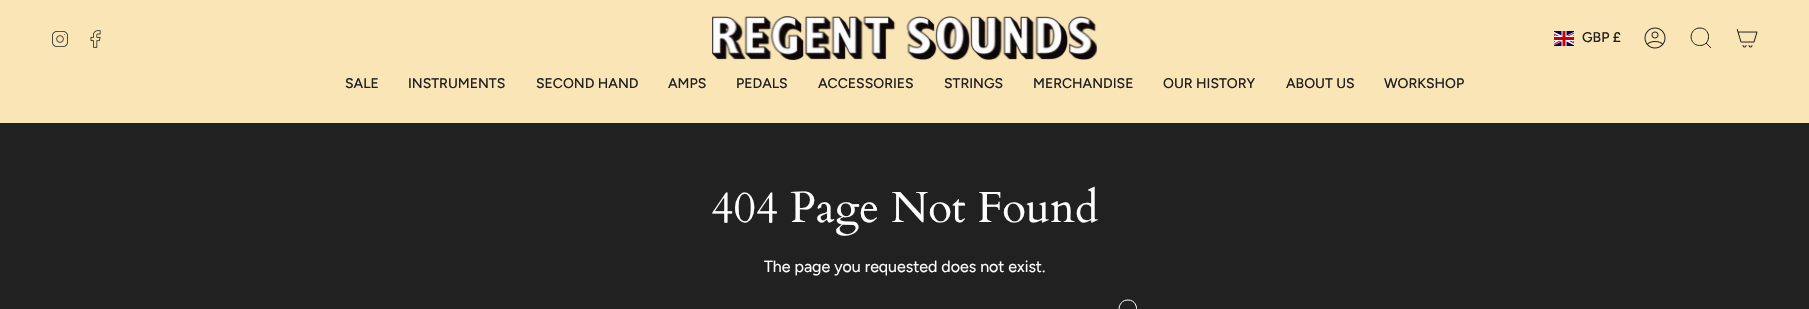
void draw(SkCanvas* canvas) {
    SkPaint paint;
    paint.setAntiAlias(true);
    canvas->clear(0xFF212121);
    paint.setColor(0xFFFAE5B7);
    canvas->drawRect(SkRect::MakeXYWH(0, 0, 1809, 123), paint);
    canvas->drawImageRect(SkImages::DeferredFromEncodedData(SkData::MakeFromFileName("img1.png")), SkRect::MakeXYWH(52, 31, 16, 16), SkSamplingOptions());
    canvas->drawImageRect(SkImages::DeferredFromEncodedData(SkData::MakeFromFileName("img2.png")), SkRect::MakeXYWH(90, 30, 11, 18), SkSamplingOptions());
    canvas->drawImageRect(SkImages::DeferredFromEncodedData(SkData::MakeFromFileName("img3.png")), SkRect::MakeXYWH(712, 16, 385, 45), SkSamplingOptions());
    canvas->drawImageRect(SkImages::DeferredFromEncodedData(SkData::MakeFromFileName("img4.png")), SkRect::MakeXYWH(1554, 31, 20, 15), SkSamplingOptions());
    SkFont font1(fontMgr->matchFamilyStyle("Figtree", SkFontStyle(500, SkFontStyle::kNormal_Width, SkFontStyle::kUpright_Slant)), 14);
    font1.setSubpixel(true);
    paint.setColor(0xFF212121);
    canvas->drawString("GBP £", 1582, 42, font1, paint);
    canvas->drawImageRect(SkImages::DeferredFromEncodedData(SkData::MakeFromFileName("img5.png")), SkRect::MakeXYWH(1644, 27, 22, 22), SkSamplingOptions());
    paint.setStyle(SkPaint::kStroke_Style);
    paint.setStrokeWidth(1);
    canvas->drawPath(SkPathBuilder().moveTo(1700, 28).cubicTo(1711.5f, 28, 1711.5f, 46, 1699.5f, 45.5f).cubicTo(1688, 45, 1688.5f, 28, 1700, 28).close().moveTo(1706, 43).lineTo(1711, 48).detach(), paint);
    canvas->drawImageRect(SkImages::DeferredFromEncodedData(SkData::MakeFromFileName("img6.png")), SkRect::MakeXYWH(1736, 29, 22, 19), SkSamplingOptions());
    paint.setStyle(SkPaint::kFill_Style);
    canvas->drawString("SALE", 345, 88, font1, paint);
    canvas->drawString("INSTRUMENTS", 408, 88, font1, paint);
    canvas->drawString("SECOND HAND", 536, 88, font1, paint);
    canvas->drawString("AMPS", 668, 88, font1, paint);
    canvas->drawString("PEDALS", 736, 88, font1, paint);
    canvas->drawString("ACCESSORIES", 818, 88, font1, paint);
    canvas->drawString("STRINGS", 944, 88, font1, paint);
    canvas->drawString("MERCHANDISE", 1033, 88, font1, paint);
    canvas->drawString("OUR HISTORY", 1163, 88, font1, paint);
    canvas->drawString("ABOUT US", 1286, 88, font1, paint);
    canvas->drawString("WORKSHOP", 1384, 88, font1, paint);
    SkFont font2(fontMgr->matchFamilyStyle("Cardo", SkFontStyle::Normal()), 43.75f);
    font2.setSubpixel(true);
    paint.setColor(0xFFFFFFFF);
    canvas->drawString("404 Page Not Found", 711, 222, font2, paint);
    SkFont font3(fontMgr->matchFamilyStyle("Figtree", SkFontStyle::Normal()), 16);
    font3.setSubpixel(true);
    canvas->drawString("The page you requested does not exist.", 764, 272, font3, paint);
    paint.setStyle(SkPaint::kStroke_Style);
    canvas->drawPath(SkPathBuilder().moveTo(1128, 300).cubicTo(1139.5f, 300, 1139.5f, 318, 1127.5f, 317.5f).cubicTo(1116, 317, 1116.5f, 300, 1128, 300).close().moveTo(1134, 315).lineTo(1139, 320).detach(), paint);
}
